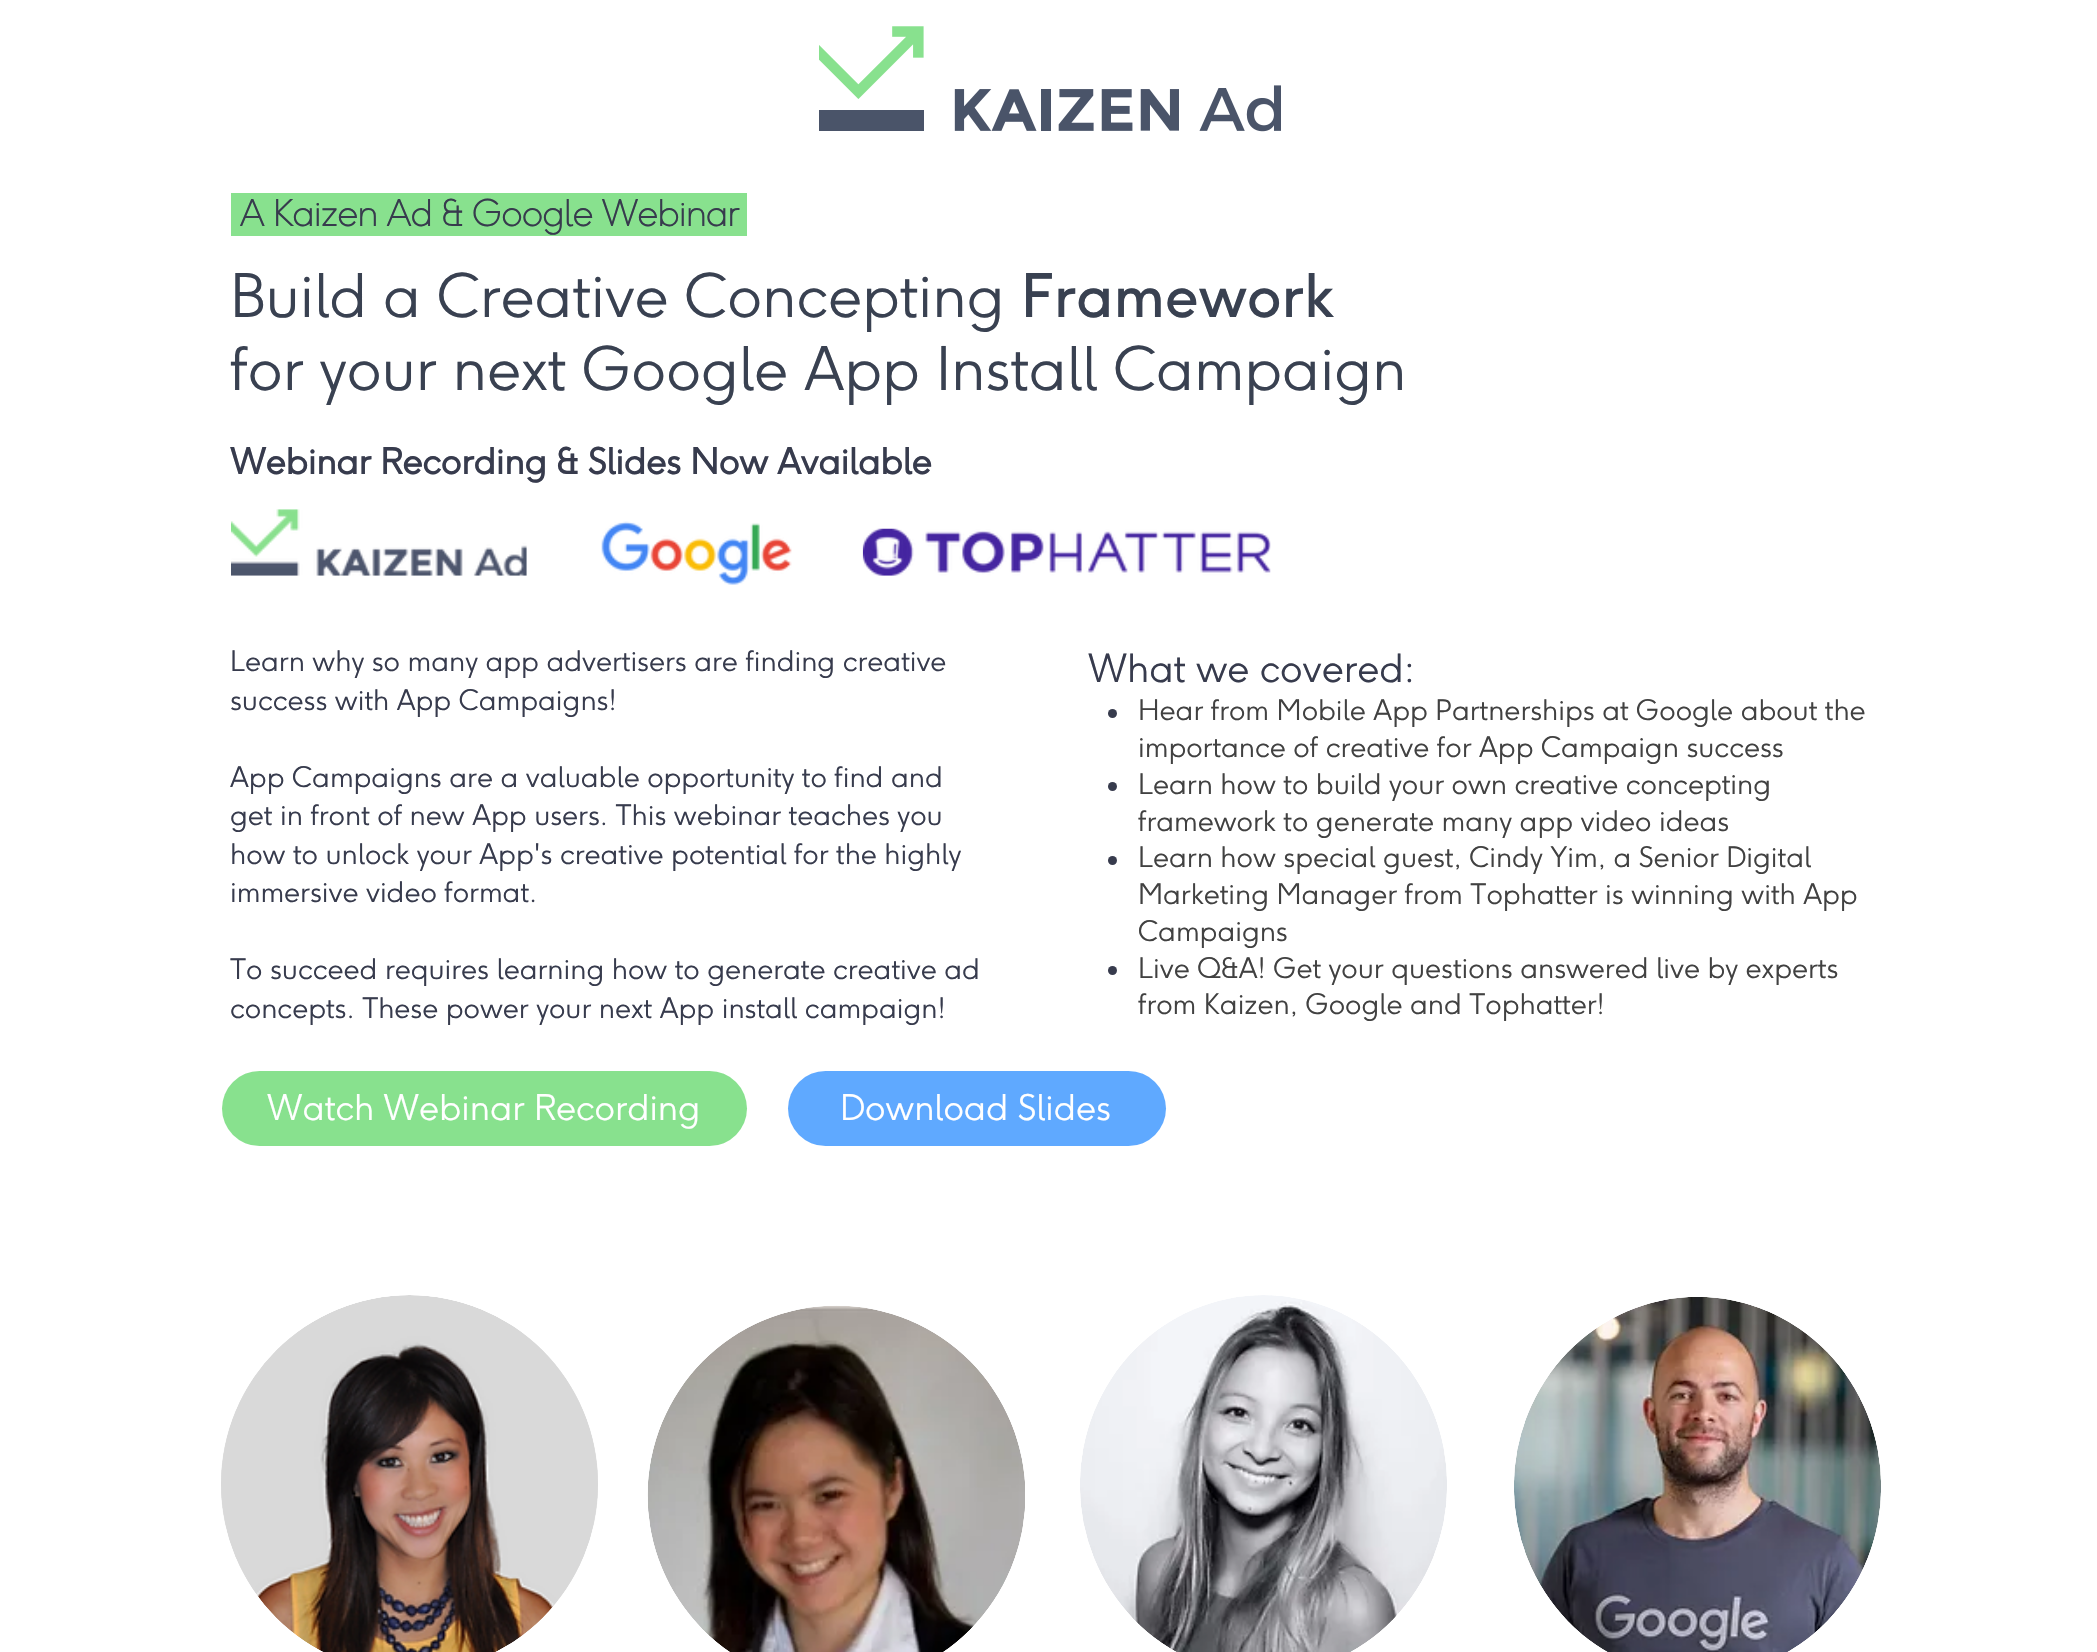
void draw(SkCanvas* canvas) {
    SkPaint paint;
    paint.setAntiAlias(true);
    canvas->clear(0xFFFFFFFF);
    canvas->drawImageRect(SkImages::DeferredFromEncodedData(SkData::MakeFromFileName("img1.png")), SkRect::MakeXYWH(819, 26, 462, 106), SkSamplingOptions());
    paint.setColor(0xFF88E18E);
    canvas->drawRect(SkRect::MakeXYWH(231, 193, 516, 43), paint);
    SkFont font1(fontMgr->matchFamilyStyle("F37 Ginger", SkFontStyle::Bold()), 35);
    font1.setSubpixel(true);
    paint.setColor(0xFF373B4D);
    canvas->drawString("A Kaizen Ad & Google Webinar", 240, 226, font1, paint);
    SkFont font2(fontMgr->matchFamilyStyle("F37 Ginger", SkFontStyle(300, SkFontStyle::kNormal_Width, SkFontStyle::kUpright_Slant)), 59.5f);
    font2.setSubpixel(true);
    paint.setColor(0xFF394151);
    canvas->drawString("Build a Creative Concepting", 230, 317, font2, paint);
    SkFont font3(fontMgr->matchFamilyStyle("F37 Ginger", SkFontStyle::Normal()), 59.5f);
    font3.setSubpixel(true);
    canvas->drawString("Framework", 1021, 317, font3, paint);
    canvas->drawString("for your next Google App Install Campaign", 230, 390, font2, paint);
    SkFont font4(fontMgr->matchFamilyStyle("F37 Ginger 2", SkFontStyle::Bold()), 35);
    font4.setSubpixel(true);
    paint.setColor(0xFF373B4D);
    canvas->drawString("Webinar Recording & Slides Now Available", 230, 474, font4, paint);
    canvas->drawImageRect(SkImages::DeferredFromEncodedData(SkData::MakeFromFileName("img2.png")), SkRect::MakeXYWH(231, 509, 296, 67), SkSamplingOptions());
    canvas->drawImageRect(SkImages::DeferredFromEncodedData(SkData::MakeFromFileName("img3.png")), SkRect::MakeXYWH(601, 521, 191, 64), SkSamplingOptions());
    canvas->drawImageRect(SkImages::DeferredFromEncodedData(SkData::MakeFromFileName("img4.png")), SkRect::MakeXYWH(862, 528, 409, 48), SkSamplingOptions());
    SkFont font5(fontMgr->matchFamilyStyle("F37 Ginger", SkFontStyle(300, SkFontStyle::kNormal_Width, SkFontStyle::kUpright_Slant)), 28);
    font5.setSubpixel(true);
    canvas->drawString("Learn why so many app advertisers are finding creative", 230, 671, font5, paint);
    canvas->drawString("success with App Campaigns!", 230, 710, font5, paint);
    canvas->drawString("App Campaigns are a valuable opportunity to find and", 230, 787, font5, paint);
    canvas->drawString("get in front of new App users. This webinar teaches you", 230, 825, font5, paint);
    canvas->drawString("how to unlock your App's creative potential for the highly", 230, 864, font5, paint);
    canvas->drawString("immersive video format.", 230, 902, font5, paint);
    canvas->drawString("To succeed requires learning how to generate creative ad", 230, 979, font5, paint);
    canvas->drawString("concepts. These power your next App install campaign!", 230, 1018, font5, paint);
    SkFont font6(fontMgr->matchFamilyStyle("F37 Ginger", SkFontStyle(300, SkFontStyle::kNormal_Width, SkFontStyle::kUpright_Slant)), 38.5f);
    font6.setSubpixel(true);
    canvas->drawString("What we covered:", 1088, 682, font6, paint);
    canvas->drawCircle(1112.5f, 713.5f, 4.5f, paint);
    paint.setColor(0xFF414141);
    canvas->drawString("Hear from Mobile App Partnerships at Google about the", 1138, 720, font5, paint);
    canvas->drawString("importance of creative for App Campaign success", 1138, 757, font5, paint);
    paint.setColor(0xFF373B4D);
    canvas->drawCircle(1112.5f, 786.5f, 4.5f, paint);
    paint.setColor(0xFF414141);
    canvas->drawString("Learn how to build your own creative concepting", 1138, 794, font5, paint);
    canvas->drawString("framework to generate many app video ideas", 1138, 831, font5, paint);
    paint.setColor(0xFF373B4D);
    canvas->drawCircle(1112.5f, 860.5f, 4.5f, paint);
    paint.setColor(0xFF414141);
    canvas->drawString("Learn how special guest, Cindy Yim, a Senior Digital", 1138, 867, font5, paint);
    canvas->drawString("Marketing Manager from Tophatter is winning with App", 1138, 904, font5, paint);
    canvas->drawString("Campaigns", 1138, 941, font5, paint);
    paint.setColor(0xFF373B4D);
    canvas->drawCircle(1112.5f, 970.5f, 4.5f, paint);
    paint.setColor(0xFF414141);
    canvas->drawString("Live Q&A! Get your questions answered live by experts", 1138, 978, font5, paint);
    canvas->drawString("from Kaizen, Google and Tophatter!", 1138, 1014, font5, paint);
    paint.setColor(0xFF88E18E);
    canvas->drawRoundRect(SkRect::MakeXYWH(222, 1071, 525, 75), 37.5f, 37.5f, paint);
    SkFont font7(fontMgr->matchFamilyStyle("F37 Ginger", SkFontStyle(300, SkFontStyle::kNormal_Width, SkFontStyle::kUpright_Slant)), 35);
    font7.setSubpixel(true);
    paint.setColor(0xFFFFFFFF);
    canvas->drawString("Watch Webinar Recording", 267, 1120, font7, paint);
    paint.setColor(0xFF5FA9FF);
    canvas->drawRoundRect(SkRect::MakeXYWH(788, 1071, 378, 75), 37.5f, 37.5f, paint);
    paint.setColor(0xFFFFFFFF);
    canvas->drawString("Download Slides", 840, 1120, font7, paint);
    canvas->drawImageRect(SkImages::DeferredFromEncodedData(SkData::MakeFromFileName("img5.png")), SkRect::MakeXYWH(221, 1295, 377, 357), SkSamplingOptions());
    canvas->drawImageRect(SkImages::DeferredFromEncodedData(SkData::MakeFromFileName("img6.png")), SkRect::MakeXYWH(647, 1305, 378, 347), SkSamplingOptions());
    canvas->drawImageRect(SkImages::DeferredFromEncodedData(SkData::MakeFromFileName("img7.png")), SkRect::MakeXYWH(1080, 1295, 367, 357), SkSamplingOptions());
    canvas->drawImageRect(SkImages::DeferredFromEncodedData(SkData::MakeFromFileName("img8.png")), SkRect::MakeXYWH(1514, 1297, 367, 355), SkSamplingOptions());
}
